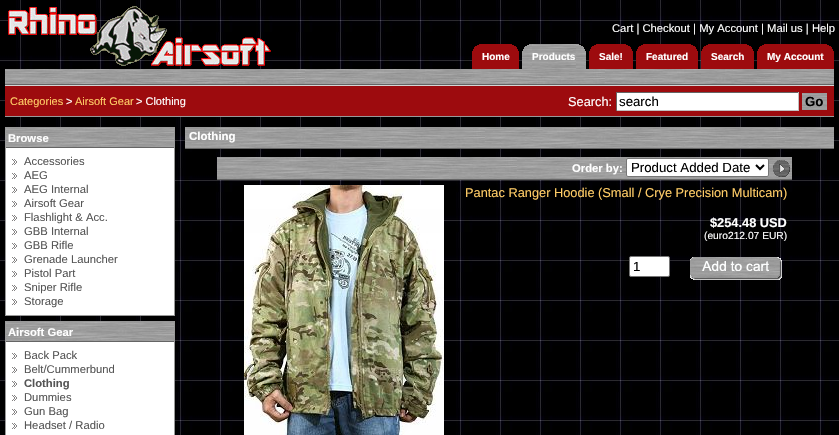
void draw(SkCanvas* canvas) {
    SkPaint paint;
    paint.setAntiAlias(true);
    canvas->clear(0xFFFFFFFF);
    canvas->drawImageRect(SkImages::DeferredFromEncodedData(SkData::MakeFromFileName("img1.png")), SkRect::MakeXYWH(0, 0, 839, 435), SkSamplingOptions());
    paint.setColor(0xFF656565);
    canvas->drawRect(SkRect::MakeXYWH(5, 84, 829, 1), paint);
    canvas->drawImageRect(SkImages::DeferredFromEncodedData(SkData::MakeFromFileName("img2.png")), SkRect::MakeXYWH(8, 6, 263, 60), SkSamplingOptions());
    SkFont font1(fontMgr->matchFamilyStyle("Liberation Sans", SkFontStyle::Normal()), 11.25f);
    font1.setSubpixel(true);
    paint.setColor(0xFFFFFFFF);
    canvas->drawString("Cart | Checkout | My Account | Mail us | Help", 612, 32, font1, paint);
    paint.setColor(0xFF9D0B0E);
    canvas->drawRect(SkRect::MakeXYWH(472, 44, 47, 25), paint);
    canvas->drawImageRect(SkImages::DeferredFromEncodedData(SkData::MakeFromFileName("img3.png")), SkRect::MakeXYWH(472, 44, 7, 7), SkSamplingOptions());
    canvas->drawImageRect(SkImages::DeferredFromEncodedData(SkData::MakeFromFileName("img4.png")), SkRect::MakeXYWH(512, 44, 7, 7), SkSamplingOptions());
    canvas->drawImageRect(SkImages::DeferredFromEncodedData(SkData::MakeFromFileName("img5.png")), SkRect::MakeXYWH(522, 44, 10, 25), SkSamplingOptions());
    canvas->drawImageRect(SkImages::DeferredFromEncodedData(SkData::MakeFromFileName("img6.png")), SkRect::MakeXYWH(522, 44, 7, 7), SkSamplingOptions());
    canvas->drawImageRect(SkImages::DeferredFromEncodedData(SkData::MakeFromFileName("img5.png")), SkRect::MakeXYWH(576, 44, 10, 25), SkSamplingOptions());
    canvas->drawImageRect(SkImages::DeferredFromEncodedData(SkData::MakeFromFileName("img7.png")), SkRect::MakeXYWH(579, 44, 7, 7), SkSamplingOptions());
    canvas->drawRect(SkRect::MakeXYWH(589, 44, 44, 25), paint);
    canvas->drawImageRect(SkImages::DeferredFromEncodedData(SkData::MakeFromFileName("img3.png")), SkRect::MakeXYWH(589, 44, 7, 7), SkSamplingOptions());
    canvas->drawImageRect(SkImages::DeferredFromEncodedData(SkData::MakeFromFileName("img4.png")), SkRect::MakeXYWH(626, 44, 7, 7), SkSamplingOptions());
    canvas->drawRect(SkRect::MakeXYWH(636, 44, 62, 25), paint);
    canvas->drawImageRect(SkImages::DeferredFromEncodedData(SkData::MakeFromFileName("img3.png")), SkRect::MakeXYWH(636, 44, 7, 7), SkSamplingOptions());
    canvas->drawImageRect(SkImages::DeferredFromEncodedData(SkData::MakeFromFileName("img4.png")), SkRect::MakeXYWH(691, 44, 7, 7), SkSamplingOptions());
    canvas->drawRect(SkRect::MakeXYWH(701, 44, 53, 25), paint);
    canvas->drawImageRect(SkImages::DeferredFromEncodedData(SkData::MakeFromFileName("img3.png")), SkRect::MakeXYWH(701, 44, 7, 7), SkSamplingOptions());
    canvas->drawImageRect(SkImages::DeferredFromEncodedData(SkData::MakeFromFileName("img4.png")), SkRect::MakeXYWH(747, 44, 7, 7), SkSamplingOptions());
    canvas->drawRect(SkRect::MakeXYWH(757, 44, 77, 25), paint);
    canvas->drawImageRect(SkImages::DeferredFromEncodedData(SkData::MakeFromFileName("img3.png")), SkRect::MakeXYWH(757, 44, 7, 7), SkSamplingOptions());
    canvas->drawImageRect(SkImages::DeferredFromEncodedData(SkData::MakeFromFileName("img4.png")), SkRect::MakeXYWH(827, 44, 7, 7), SkSamplingOptions());
    SkFont font2(fontMgr->matchFamilyStyle("Liberation Sans", SkFontStyle::Bold()), 10);
    font2.setSubpixel(true);
    paint.setColor(0xFFFFFFFF);
    canvas->drawString("Home", 482, 60, font2, paint);
    canvas->drawImageRect(SkImages::DeferredFromEncodedData(SkData::MakeFromFileName("img8.png")), SkRect::MakeXYWH(532, 44, 44, 25), SkSamplingOptions());
    canvas->drawString("Products", 532, 60, font2, paint);
    canvas->drawString("Sale!", 599, 60, font2, paint);
    canvas->drawString("Featured", 646, 60, font2, paint);
    canvas->drawString("Search", 711, 60, font2, paint);
    canvas->drawString("My Account", 767, 60, font2, paint);
    canvas->drawImageRect(SkImages::DeferredFromEncodedData(SkData::MakeFromFileName("img9.png")), SkRect::MakeXYWH(5, 69, 829, 15), SkSamplingOptions());
    paint.setColor(0xFFD5D5D5);
    canvas->drawRect(SkRect::MakeXYWH(5, 85, 829, 1), paint);
    paint.setColor(0xFF999999);
    canvas->drawRect(SkRect::MakeXYWH(5, 116, 829, 1), paint);
    paint.setColor(0xFF9D0B0E);
    canvas->drawRect(SkRect::MakeXYWH(5, 86, 829, 30), paint);
    SkFont font3(fontMgr->matchFamilyStyle("Liberation Sans", SkFontStyle::Normal()), 11);
    font3.setSubpixel(true);
    paint.setColor(0xFFFFCC66);
    canvas->drawString("Categories", 10, 105, font3, paint);
    paint.setColor(0xFFFFFFFF);
    canvas->drawString(">", 66, 105, font3, paint);
    paint.setColor(0xFFFFCC66);
    canvas->drawString("Airsoft Gear", 75, 105, font3, paint);
    paint.setColor(0xFFFFFFFF);
    canvas->drawString("> Clothing", 136, 105, font3, paint);
    SkFont font4(fontMgr->matchFamilyStyle("Liberation Sans", SkFontStyle::Normal()), 12.8f);
    font4.setSubpixel(true);
    canvas->drawString("Search:", 568, 106, font4, paint);
    canvas->drawRect(SkRect::MakeXYWH(617, 93, 181, 17), paint);
    paint.setColor(0xFF656565);
    canvas->drawRect(SkRect::MakeXYWH(616, 92, 183, 1), paint);
    paint.setColor(0xFFC0C0C0);
    canvas->drawRect(SkRect::MakeXYWH(798, 92, 1, 19), paint);
    canvas->drawRect(SkRect::MakeXYWH(616, 110, 183, 1), paint);
    paint.setColor(0xFF656565);
    canvas->drawRect(SkRect::MakeXYWH(616, 92, 1, 19), paint);
    SkFont font5(fontMgr->matchFamilyStyle("Liberation Sans", SkFontStyle::Normal()), 13.25f);
    font5.setSubpixel(true);
    paint.setColor(0xFF000000);
    canvas->drawString("search", 619, 106, font5, paint);
    canvas->drawImageRect(SkImages::DeferredFromEncodedData(SkData::MakeFromFileName("img10.png")), SkRect::MakeXYWH(802, 93, 25, 17), SkSamplingOptions());
    SkFont font6(fontMgr->matchFamilyStyle("Liberation Sans", SkFontStyle::Bold()), 13.25f);
    font6.setSubpixel(true);
    canvas->drawString("Go", 805, 106, font6, paint);
    paint.setStyle(SkPaint::kStroke_Style);
    paint.setStrokeWidth(1);
    paint.setColor(0xFF999999);
    canvas->drawRect(SkRect::MakeXYWH(5.5f, 127.5f, 169, 188), paint);
    canvas->drawImageRect(SkImages::DeferredFromEncodedData(SkData::MakeFromFileName("img11.png")), SkRect::MakeXYWH(6, 128, 168, 19), SkSamplingOptions());
    paint.setStyle(SkPaint::kFill_Style);
    paint.setColor(0xFF656565);
    canvas->drawRect(SkRect::MakeXYWH(6, 147, 168, 1), paint);
    SkFont font7(fontMgr->matchFamilyStyle("Liberation Sans", SkFontStyle::Bold()), 11.25f);
    font7.setSubpixel(true);
    paint.setColor(0xFFFFFFFF);
    canvas->drawString("Browse", 8, 142, font7, paint);
    canvas->drawRect(SkRect::MakeXYWH(6, 148, 168, 167), paint);
    canvas->drawImageRect(SkImages::DeferredFromEncodedData(SkData::MakeFromFileName("img12.png")), SkRect::MakeXYWH(12, 159, 5, 6), SkSamplingOptions());
    paint.setColor(0xFF555555);
    canvas->drawString("Accessories", 24, 165, font1, paint);
    canvas->drawImageRect(SkImages::DeferredFromEncodedData(SkData::MakeFromFileName("img12.png")), SkRect::MakeXYWH(12, 173, 5, 6), SkSamplingOptions());
    canvas->drawString("AEG", 24, 179, font1, paint);
    canvas->drawImageRect(SkImages::DeferredFromEncodedData(SkData::MakeFromFileName("img12.png")), SkRect::MakeXYWH(12, 187, 5, 6), SkSamplingOptions());
    canvas->drawString("AEG Internal", 24, 193, font1, paint);
    canvas->drawImageRect(SkImages::DeferredFromEncodedData(SkData::MakeFromFileName("img12.png")), SkRect::MakeXYWH(12, 201, 5, 6), SkSamplingOptions());
    canvas->drawString("Airsoft Gear", 24, 207, font1, paint);
    canvas->drawImageRect(SkImages::DeferredFromEncodedData(SkData::MakeFromFileName("img12.png")), SkRect::MakeXYWH(12, 215, 5, 6), SkSamplingOptions());
    canvas->drawString("Flashlight & Acc.", 24, 221, font1, paint);
    canvas->drawImageRect(SkImages::DeferredFromEncodedData(SkData::MakeFromFileName("img12.png")), SkRect::MakeXYWH(12, 229, 5, 6), SkSamplingOptions());
    canvas->drawString("GBB Internal", 24, 235, font1, paint);
    canvas->drawImageRect(SkImages::DeferredFromEncodedData(SkData::MakeFromFileName("img12.png")), SkRect::MakeXYWH(12, 243, 5, 6), SkSamplingOptions());
    canvas->drawString("GBB Rifle", 24, 249, font1, paint);
    canvas->drawImageRect(SkImages::DeferredFromEncodedData(SkData::MakeFromFileName("img12.png")), SkRect::MakeXYWH(12, 257, 5, 6), SkSamplingOptions());
    canvas->drawString("Grenade Launcher", 24, 263, font1, paint);
    canvas->drawImageRect(SkImages::DeferredFromEncodedData(SkData::MakeFromFileName("img12.png")), SkRect::MakeXYWH(12, 271, 5, 6), SkSamplingOptions());
    canvas->drawString("Pistol Part", 24, 277, font1, paint);
    canvas->drawImageRect(SkImages::DeferredFromEncodedData(SkData::MakeFromFileName("img12.png")), SkRect::MakeXYWH(12, 285, 5, 6), SkSamplingOptions());
    canvas->drawString("Sniper Rifle", 24, 291, font1, paint);
    canvas->drawImageRect(SkImages::DeferredFromEncodedData(SkData::MakeFromFileName("img12.png")), SkRect::MakeXYWH(12, 299, 5, 6), SkSamplingOptions());
    canvas->drawString("Storage", 24, 305, font1, paint);
    paint.setStyle(SkPaint::kStroke_Style);
    paint.setColor(0xFF999999);
    canvas->drawRect(SkRect::MakeXYWH(5.5f, 321.5f, 169, 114), paint);
    canvas->drawImageRect(SkImages::DeferredFromEncodedData(SkData::MakeFromFileName("img11.png")), SkRect::MakeXYWH(6, 322, 168, 19), SkSamplingOptions());
    paint.setStyle(SkPaint::kFill_Style);
    paint.setColor(0xFF656565);
    canvas->drawRect(SkRect::MakeXYWH(6, 341, 168, 1), paint);
    paint.setColor(0xFFFFFFFF);
    canvas->drawString("Airsoft Gear", 8, 336, font7, paint);
    canvas->drawRect(SkRect::MakeXYWH(6, 342, 168, 93), paint);
    canvas->drawImageRect(SkImages::DeferredFromEncodedData(SkData::MakeFromFileName("img12.png")), SkRect::MakeXYWH(12, 353, 5, 6), SkSamplingOptions());
    paint.setColor(0xFF555555);
    canvas->drawString("Back Pack", 24, 359, font1, paint);
    canvas->drawImageRect(SkImages::DeferredFromEncodedData(SkData::MakeFromFileName("img12.png")), SkRect::MakeXYWH(12, 367, 5, 6), SkSamplingOptions());
    canvas->drawString("Belt/Cummerbund", 24, 373, font1, paint);
    canvas->drawImageRect(SkImages::DeferredFromEncodedData(SkData::MakeFromFileName("img12.png")), SkRect::MakeXYWH(12, 381, 5, 6), SkSamplingOptions());
    canvas->drawString("Clothing", 24, 387, font7, paint);
    canvas->drawImageRect(SkImages::DeferredFromEncodedData(SkData::MakeFromFileName("img12.png")), SkRect::MakeXYWH(12, 395, 5, 6), SkSamplingOptions());
    canvas->drawString("Dummies", 24, 401, font1, paint);
    canvas->drawImageRect(SkImages::DeferredFromEncodedData(SkData::MakeFromFileName("img12.png")), SkRect::MakeXYWH(12, 409, 5, 6), SkSamplingOptions());
    canvas->drawString("Gun Bag", 24, 415, font1, paint);
    canvas->drawImageRect(SkImages::DeferredFromEncodedData(SkData::MakeFromFileName("img12.png")), SkRect::MakeXYWH(12, 423, 5, 6), SkSamplingOptions());
    canvas->drawString("Headset / Radio", 24, 429, font1, paint);
    canvas->drawImageRect(SkImages::DeferredFromEncodedData(SkData::MakeFromFileName("img13.png")), SkRect::MakeXYWH(185, 128, 649, 20), SkSamplingOptions());
    paint.setColor(0xFF999999);
    canvas->drawRect(SkRect::MakeXYWH(185, 127, 649, 1), paint);
    paint.setColor(0xFF656565);
    canvas->drawRect(SkRect::MakeXYWH(185, 148, 649, 1), paint);
    SkFont font8(fontMgr->matchFamilyStyle("Liberation Sans", SkFontStyle::Bold()), 11.5f);
    font8.setSubpixel(true);
    paint.setColor(0xFFFFFFFF);
    canvas->drawString("Clothing", 189, 140, font8, paint);
    canvas->drawImageRect(SkImages::DeferredFromEncodedData(SkData::MakeFromFileName("img14.png")), SkRect::MakeXYWH(217, 157, 575, 22), SkSamplingOptions());
    paint.setColor(0xFF656565);
    canvas->drawRect(SkRect::MakeXYWH(217, 179, 575, 1), paint);
    paint.setColor(0xFFFFFFFF);
    canvas->drawString("Order by:", 572, 172, font7, paint);
    canvas->drawRoundRect(SkRect::MakeXYWH(626.5f, 158.5f, 142, 18), 1.5f, 1.5f, paint);
    paint.setStyle(SkPaint::kStroke_Style);
    paint.setColor(0xFF767676);
    canvas->drawRoundRect(SkRect::MakeXYWH(626.5f, 158.5f, 142, 18), 1.5f, 1.5f, paint);
    paint.setStrokeWidth(2);
    paint.setColor(0xFF000000);
    canvas->drawPath(SkPathBuilder().moveTo(756, 165).lineTo(760, 169).lineTo(764, 165).detach(), paint);
    paint.setStyle(SkPaint::kFill_Style);
    canvas->drawString("Product Added Date", 631, 172, font5, paint);
    canvas->drawImageRect(SkImages::DeferredFromEncodedData(SkData::MakeFromFileName("img15.png")), SkRect::MakeXYWH(773, 160, 17, 17), SkSamplingOptions());
    canvas->drawImageRect(SkImages::DeferredFromEncodedData(SkData::MakeFromFileName("img16.png")), SkRect::MakeXYWH(244, 185, 200, 250), SkSamplingOptions());
    paint.setColor(0xFFFFCC66);
    canvas->drawString("Pantac Ranger Hoodie (Small / Crye Precision Multicam)", 465, 197, font4, paint);
    SkFont font9(fontMgr->matchFamilyStyle("Liberation Sans", SkFontStyle::Bold()), 12.8f);
    font9.setSubpixel(true);
    paint.setColor(0xFFFFFFFF);
    canvas->drawString("$254.48 USD", 710, 227, font9, paint);
    SkFont font10(fontMgr->matchFamilyStyle("Liberation Sans", SkFontStyle::Normal()), 10.25f);
    font10.setSubpixel(true);
    canvas->drawString("(euro212.07 EUR)", 704, 239, font10, paint);
    canvas->drawRoundRect(SkRect::MakeXYWH(629.5f, 256.5f, 40, 20), 1.5f, 1.5f, paint);
    paint.setStyle(SkPaint::kStroke_Style);
    paint.setStrokeWidth(1);
    paint.setColor(0xFF767676);
    canvas->drawRoundRect(SkRect::MakeXYWH(629.5f, 256.5f, 40, 20), 1.5f, 1.5f, paint);
    paint.setStyle(SkPaint::kFill_Style);
    paint.setColor(0xFF000000);
    canvas->drawString("1", 633, 271, font5, paint);
    canvas->drawImageRect(SkImages::DeferredFromEncodedData(SkData::MakeFromFileName("img17.png")), SkRect::MakeXYWH(690, 257, 92, 23), SkSamplingOptions());
}
